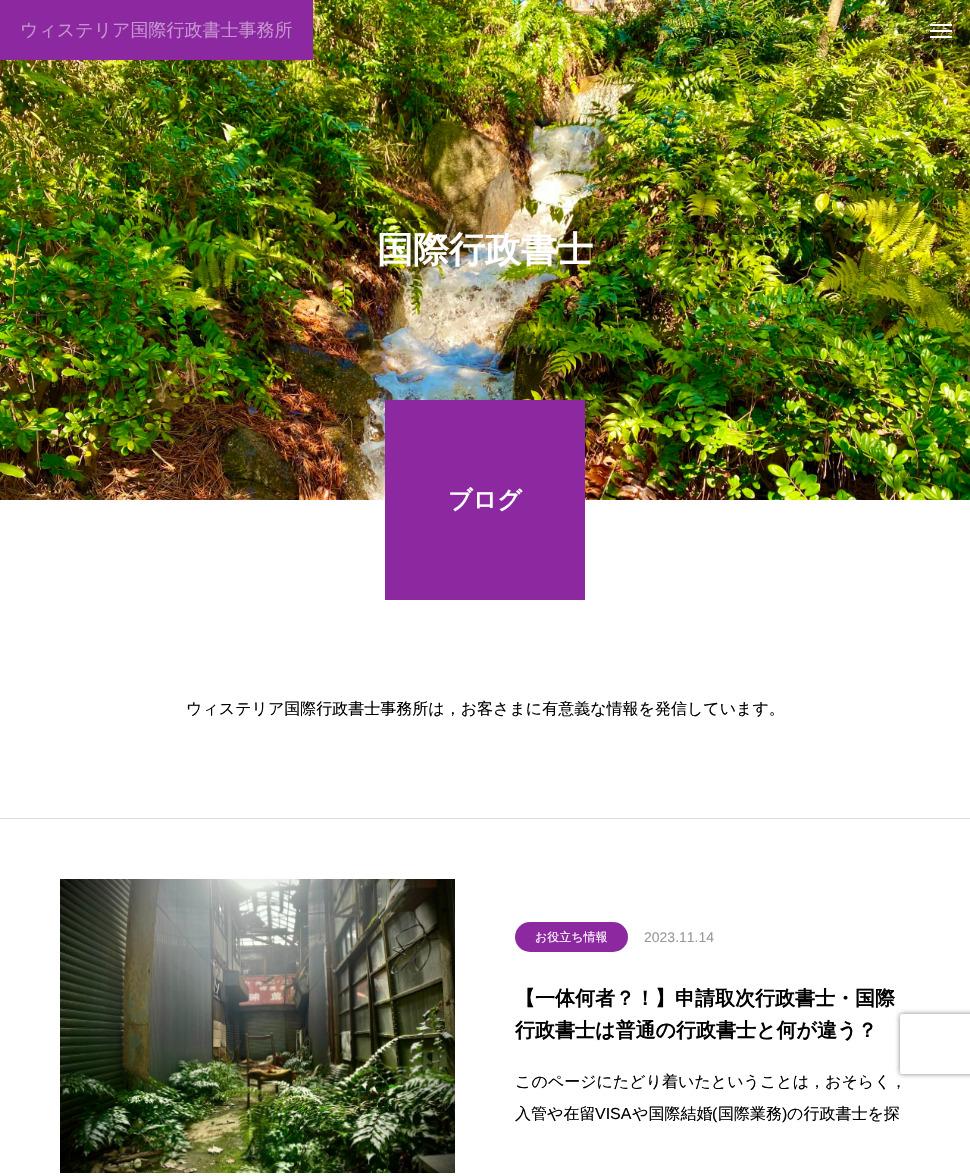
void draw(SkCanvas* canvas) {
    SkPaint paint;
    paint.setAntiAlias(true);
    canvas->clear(0xFFFFFFFF);
    canvas->drawImageRect(SkImages::DeferredFromEncodedData(SkData::MakeFromFileName("img1.png")), SkRect::MakeXYWH(0, 0, 970, 500), SkSamplingOptions());
    paint.setColor(0xFF8C29A0);
    canvas->drawRect(SkRect::MakeXYWH(0, 0, 313, 60), paint);
    SkFont font1(fontMgr->matchFamilyStyle("WenQuanYi Zen Hei", SkFontStyle(500, SkFontStyle::kNormal_Width, SkFontStyle::kUpright_Slant)), 18);
    font1.setSubpixel(true);
    paint.setColor(0xFFC694D0);
    canvas->drawString("ウィステリア国際行政書士事務所", 20, 36, font1, paint);
    paint.setColor(0xFFFFFFFF);
    canvas->drawRect(SkRect::MakeXYWH(930, 24, 22, 2), paint);
    canvas->drawRect(SkRect::MakeXYWH(930, 30, 22, 2), paint);
    canvas->drawRect(SkRect::MakeXYWH(930, 36, 22, 2), paint);
    SkFont font2(fontMgr->matchFamilyStyle("WenQuanYi Zen Hei", SkFontStyle::Bold()), 36);
    font2.setSubpixel(true);
    canvas->drawString("国際行政書士", 377, 262, font2, paint);
    paint.setColor(0xFF8C29A0);
    canvas->drawRect(SkRect::MakeXYWH(385, 400, 200, 200), paint);
    SkFont font3(fontMgr->matchFamilyStyle("WenQuanYi Zen Hei", SkFontStyle::Bold()), 24);
    font3.setSubpixel(true);
    paint.setColor(0xFFFFFFFF);
    canvas->drawString("ブログ", 448, 508, font3, paint);
    SkFont font4(fontMgr->matchFamilyStyle("WenQuanYi Zen Hei", SkFontStyle(500, SkFontStyle::kNormal_Width, SkFontStyle::kUpright_Slant)), 16);
    font4.setSubpixel(true);
    paint.setColor(0xFF000000);
    canvas->drawString("ウィステリア国際行政書士事務所は，お客さまに有意義な情報を発信しています。", 186, 714, font4, paint);
    paint.setColor(0xFFDDDDDD);
    canvas->drawRect(SkRect::MakeXYWH(0, 818, 970, 1), paint);
    canvas->drawImageRect(SkImages::DeferredFromEncodedData(SkData::MakeFromFileName("img2.png")), SkRect::MakeXYWH(60, 879, 395, 294), SkSamplingOptions());
    paint.setColor(0xFF8C29A0);
    canvas->drawRoundRect(SkRect::MakeXYWH(515, 922, 113, 30), 15, 15, paint);
    SkFont font5(fontMgr->matchFamilyStyle("WenQuanYi Zen Hei", SkFontStyle(500, SkFontStyle::kNormal_Width, SkFontStyle::kUpright_Slant)), 12);
    font5.setSubpixel(true);
    paint.setColor(0xFFFFFFFF);
    canvas->drawString("お役立ち情報", 535, 941, font5, paint);
    SkFont font6(fontMgr->matchFamilyStyle("Liberation Sans", SkFontStyle::Normal()), 14);
    font6.setSubpixel(true);
    paint.setColor(0xFF999999);
    canvas->drawString("2023.11.14", 644, 942, font6, paint);
    canvas->save();
    canvas->clipPath(SkPathBuilder(SkPathFillType::kEvenOdd).moveTo(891, 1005).lineTo(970, 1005).lineTo(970, 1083).lineTo(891, 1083).close().moveTo(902, 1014).lineTo(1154, 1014).cubicTo(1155, 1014, 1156, 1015, 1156, 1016).lineTo(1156, 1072).cubicTo(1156, 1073, 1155, 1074, 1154, 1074).lineTo(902, 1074).cubicTo(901, 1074, 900, 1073, 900, 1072).lineTo(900, 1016).cubicTo(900, 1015, 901, 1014, 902, 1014).close().detach(), true);
    paint.setColor(0xFF808080);
    paint.setMaskFilter(SkMaskFilter::MakeBlur(kNormal_SkBlurStyle, 2.5f));
    canvas->drawRoundRect(SkRect::MakeXYWH(900, 1014, 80, 60), 2, 2, paint);
    paint.setMaskFilter(nullptr);
    canvas->restore();
    SkFont font7(fontMgr->matchFamilyStyle("WenQuanYi Zen Hei", SkFontStyle::Bold()), 20);
    font7.setSubpixel(true);
    paint.setColor(0xFF000000);
    canvas->drawString("【一体何者？！】申請取次行政書士・国際", 515, 1005, font7, paint);
    canvas->drawString("行政書士は普通の行政書士と何が違う？", 515, 1037, font7, paint);
    canvas->drawString("このページにたどり着いたということは，おそらく，", 515, 1087, font4, paint);
    canvas->drawString("入管や在留", 515, 1119, font4, paint);
    SkFont font8(fontMgr->matchFamilyStyle("Liberation Sans", SkFontStyle::Normal()), 16);
    font8.setSubpixel(true);
    canvas->drawString("VISA", 595, 1119, font8, paint);
    canvas->drawString("や国際結婚", 632, 1119, font4, paint);
    canvas->drawString("(", 712, 1119, font8, paint);
    canvas->drawString("国際業務", 718, 1119, font4, paint);
    canvas->drawString(")", 782, 1119, font8, paint);
    canvas->drawString("の行政書士を探", 787, 1119, font4, paint);
}
